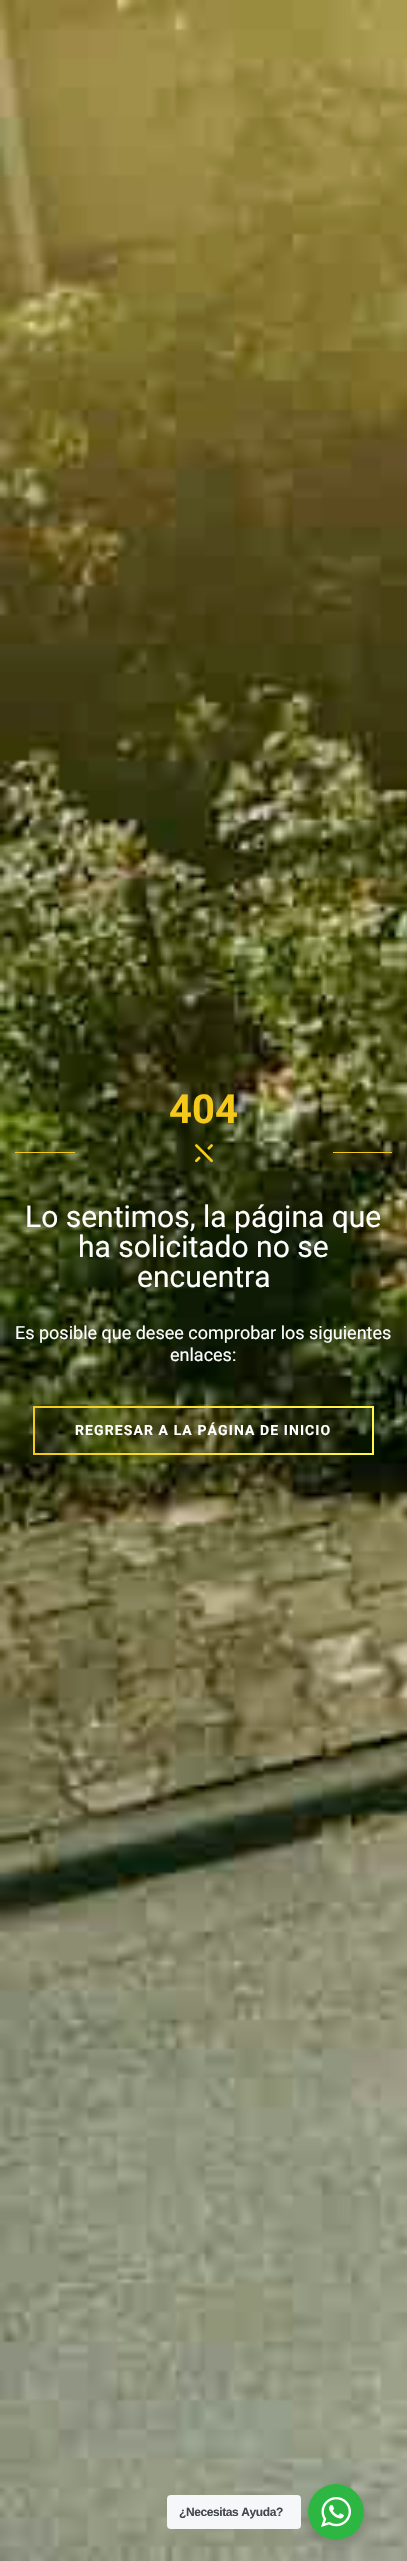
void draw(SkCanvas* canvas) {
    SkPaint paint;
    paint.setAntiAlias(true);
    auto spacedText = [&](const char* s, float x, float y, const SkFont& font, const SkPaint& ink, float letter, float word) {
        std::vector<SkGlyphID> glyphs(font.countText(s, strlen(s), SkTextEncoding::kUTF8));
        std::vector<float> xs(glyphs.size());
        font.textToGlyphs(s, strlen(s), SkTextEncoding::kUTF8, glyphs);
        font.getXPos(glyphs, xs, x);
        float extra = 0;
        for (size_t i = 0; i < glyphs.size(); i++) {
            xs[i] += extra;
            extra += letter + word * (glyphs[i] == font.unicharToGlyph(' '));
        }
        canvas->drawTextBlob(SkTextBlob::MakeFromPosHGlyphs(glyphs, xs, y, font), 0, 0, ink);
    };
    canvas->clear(0xFFFFFFFF);
    canvas->drawImageRect(SkImages::DeferredFromEncodedData(SkData::MakeFromFileName("img1.png")), SkRect::MakeXYWH(0, 0, 407, 2561), SkSamplingOptions());
    SkFont font1(fontMgr->matchFamilyStyle("Roboto", SkFontStyle::Bold()), 40);
    font1.setSubpixel(true);
    paint.setColor(0xFFF4C91B);
    canvas->drawString("404", 169, 1123, font1, paint);
    canvas->drawRect(SkRect::MakeXYWH(15, 1152, 60, 1), paint);
    canvas->drawImageRect(SkImages::DeferredFromEncodedData(SkData::MakeFromFileName("img2.png")), SkRect::MakeXYWH(195, 1144, 18, 19), SkSamplingOptions());
    canvas->drawRect(SkRect::MakeXYWH(333, 1152, 59, 1), paint);
    SkFont font2(fontMgr->matchFamilyStyle("Roboto", SkFontStyle::Normal()), 30);
    font2.setSubpixel(true);
    paint.setColor(0xFFFFFFFF);
    canvas->drawString("Lo sentimos, la página que", 25, 1227, font2, paint);
    canvas->drawString("ha solicitado no se", 78, 1257, font2, paint);
    canvas->drawString("encuentra", 137, 1287, font2, paint);
    SkFont font3(fontMgr->matchFamilyStyle("Roboto", SkFontStyle::Normal()), 18);
    font3.setSubpixel(true);
    canvas->drawString("Es posible que desee comprobar los siguientes", 15, 1339, font3, paint);
    canvas->drawString("enlaces:", 170, 1361, font3, paint);
    paint.setColor(0xFFFFF749);
    canvas->drawRect(SkRect::MakeXYWH(372, 1406, 2, 49), paint);
    paint.setColor(0xFFF4C91B);
    canvas->drawRect(SkRect::MakeXYWH(33, 1406, 2, 49), paint);
    {
        const SkColor colors[] = {0xFFF4C91B, 0xFFFFF749};
        const float stops[] = {0, 1};
        const SkPoint ends[] = {{35, 1407}, {372, 1407}};
        paint.setShader(SkGradientShader::MakeLinear(ends, colors, stops, 2, SkTileMode::kClamp));
        paint.setAlpha(255);
    }
    canvas->drawRect(SkRect::MakeXYWH(35, 1406, 337, 2), paint);
    SkFont font4(fontMgr->matchFamilyStyle("Roboto", SkFontStyle::Bold()), 14);
    font4.setSubpixel(true);
    paint.setShader(nullptr);
    paint.setColor(0xFFFFFFFF);
    spacedText("REGRESAR A LA PÁGINA DE INICIO", 75, 1435, font4, paint, 1.1f, 0);
    {
        const SkColor colors[] = {0xFFF4C91B, 0xFFFFF749};
        const float stops[] = {0, 1};
        const SkPoint ends[] = {{35, 1454}, {372, 1454}};
        paint.setShader(SkGradientShader::MakeLinear(ends, colors, stops, 2, SkTileMode::kClamp));
        paint.setAlpha(255);
    }
    canvas->drawRect(SkRect::MakeXYWH(35, 1453, 337, 2), paint);
    paint.setShader(nullptr);
    paint.setColor(0x24000000);
    paint.setMaskFilter(SkMaskFilter::MakeBlur(kNormal_SkBlurStyle, 4));
    canvas->drawRoundRect(SkRect::MakeXYWH(306, 2488, 60, 60), 30, 30, paint);
    paint.setMaskFilter(nullptr);
    paint.setColor(0xFFF5F7F9);
    canvas->drawRoundRect(SkRect::MakeXYWH(167, 2495, 134, 34), 4, 4, paint);
    SkFont font5(fontMgr->matchFamilyStyle("Liberation Sans", SkFontStyle::Bold()), 12);
    font5.setSubpixel(true);
    paint.setColor(0xFF43474E);
    spacedText("¿Necesitas Ayuda?", 179, 2516, font5, paint, -0.4f, 0);
    paint.setColor(0xFF2DB742);
    canvas->drawCircle(336, 2512, 28, paint);
    canvas->drawImageRect(SkImages::DeferredFromEncodedData(SkData::MakeFromFileName("img3.png")), SkRect::MakeXYWH(321, 2497, 30, 30), SkSamplingOptions());
}
